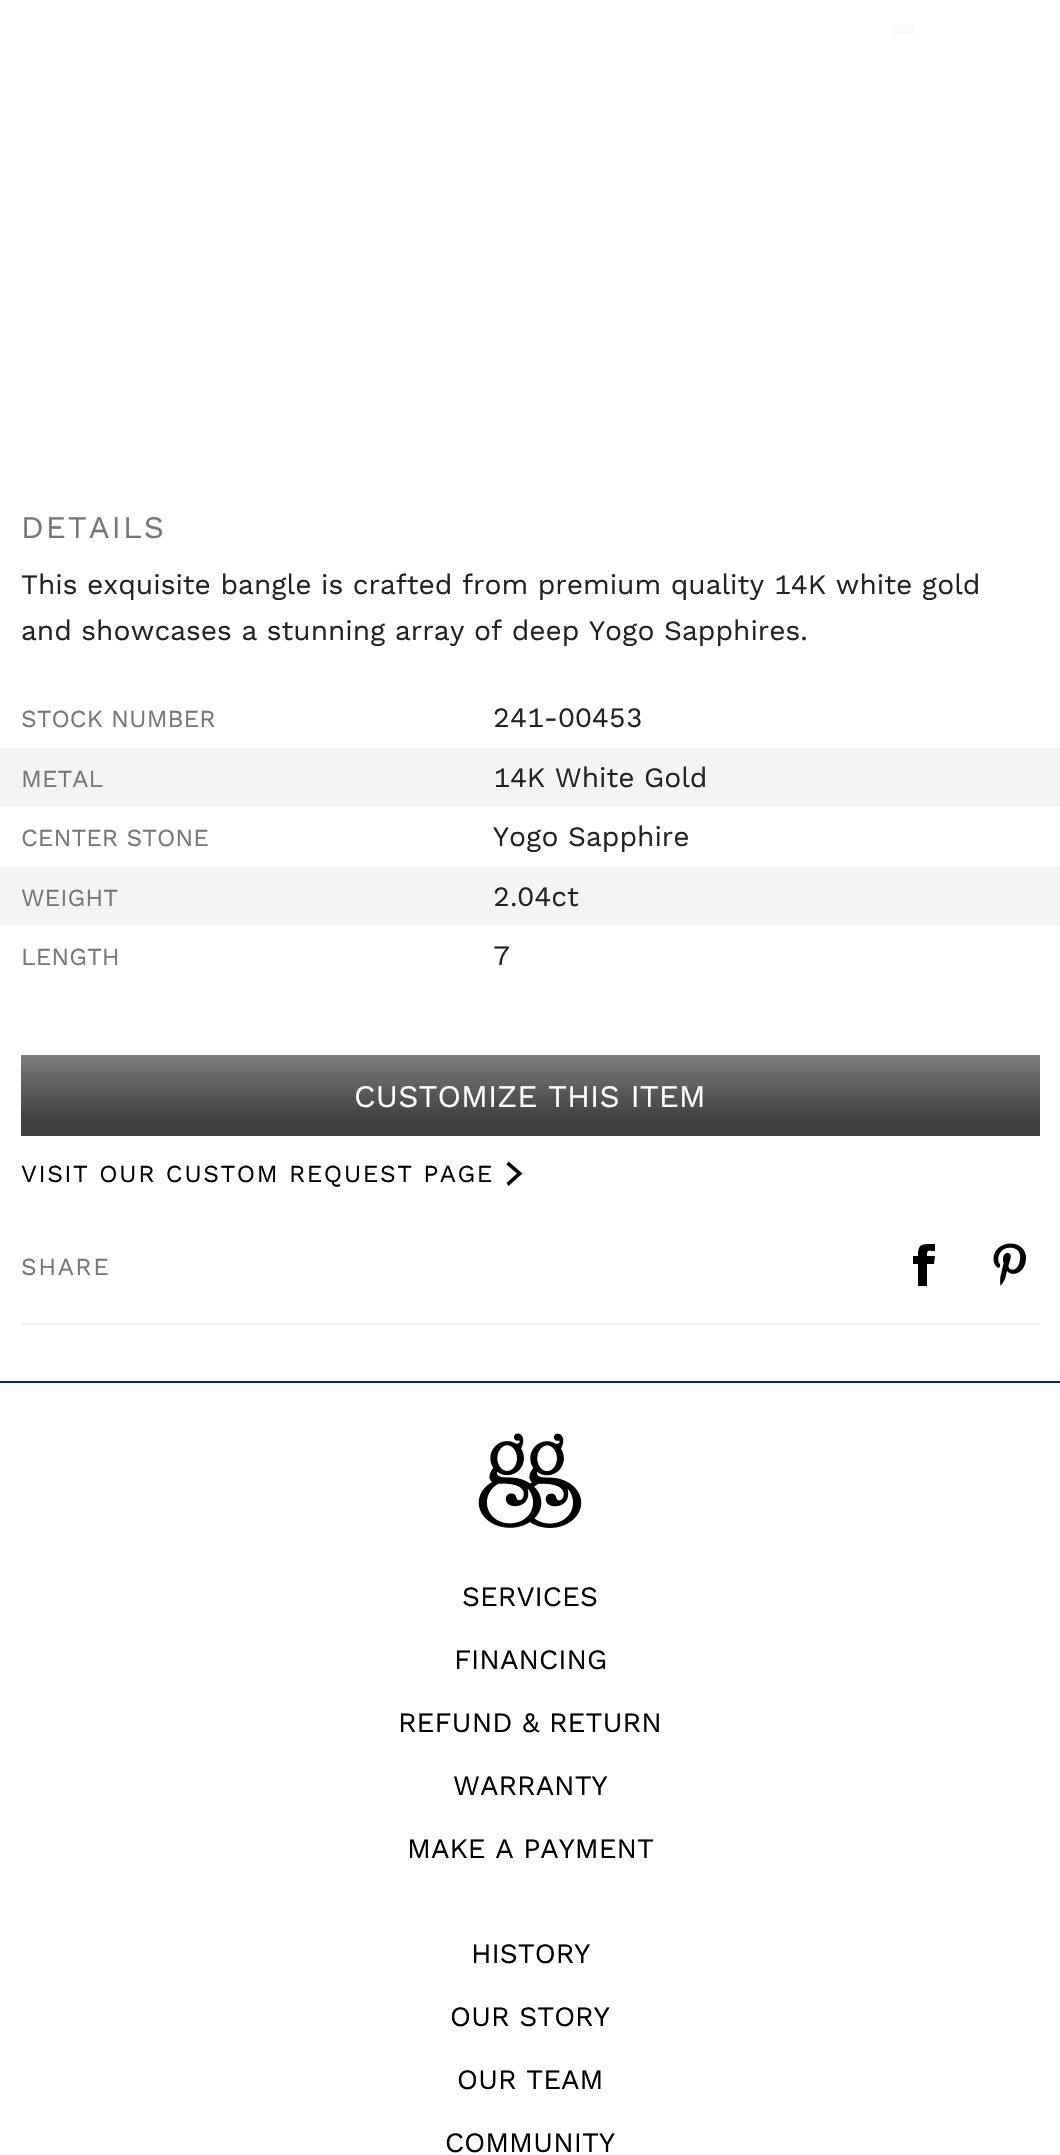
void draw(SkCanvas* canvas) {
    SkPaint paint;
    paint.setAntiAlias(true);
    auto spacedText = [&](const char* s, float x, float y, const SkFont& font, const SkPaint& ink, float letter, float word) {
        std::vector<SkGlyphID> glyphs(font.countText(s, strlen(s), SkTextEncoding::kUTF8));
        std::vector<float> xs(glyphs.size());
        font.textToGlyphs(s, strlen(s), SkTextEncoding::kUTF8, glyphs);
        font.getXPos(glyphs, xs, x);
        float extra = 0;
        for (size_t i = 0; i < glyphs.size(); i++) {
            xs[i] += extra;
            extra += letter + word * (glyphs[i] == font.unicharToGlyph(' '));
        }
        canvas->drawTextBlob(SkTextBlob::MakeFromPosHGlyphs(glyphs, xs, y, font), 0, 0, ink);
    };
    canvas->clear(0xFFFFFFFF);
    paint.setColor(0xFFFAFAFB);
    canvas->drawRect(SkRect::MakeXYWH(892, 25, 22, 9), paint);
    SkFont font1(fontMgr->matchFamilyStyle("Work Sans", SkFontStyle::Normal()), 31.5f);
    font1.setSubpixel(true);
    paint.setColor(0xFF767676);
    spacedText("DETAILS", 21, 538, font1, paint, 2, 0);
    SkFont font2(fontMgr->matchFamilyStyle("Work Sans", SkFontStyle::Normal()), 28);
    font2.setSubpixel(true);
    paint.setColor(0xFF222222);
    canvas->drawString("This exquisite bangle is crafted from premium quality 14K white gold", 21, 594, font2, paint);
    canvas->drawString("and showcases a stunning array of deep Yogo Sapphires.", 21, 640, font2, paint);
    SkFont font3(fontMgr->matchFamilyStyle("Work Sans", SkFontStyle::Normal()), 24.5f);
    font3.setSubpixel(true);
    paint.setColor(0xFF767676);
    canvas->drawString("STOCK NUMBER", 21, 727, font3, paint);
    paint.setColor(0xFF222222);
    canvas->drawString("241-00453", 493, 727, font2, paint);
    paint.setColor(0xFFF4F4F4);
    canvas->drawRect(SkRect::MakeXYWH(0, 747, 1060, 60), paint);
    paint.setColor(0xFF767676);
    canvas->drawString("METAL", 21, 787, font3, paint);
    paint.setColor(0xFF222222);
    canvas->drawString("14K White Gold", 493, 787, font2, paint);
    paint.setColor(0xFF767676);
    canvas->drawString("CENTER STONE", 21, 846, font3, paint);
    paint.setColor(0xFF222222);
    canvas->drawString("Yogo Sapphire", 493, 846, font2, paint);
    paint.setColor(0xFFF4F4F4);
    canvas->drawRect(SkRect::MakeXYWH(0, 866, 1060, 60), paint);
    paint.setColor(0xFF767676);
    canvas->drawString("WEIGHT", 21, 906, font3, paint);
    paint.setColor(0xFF222222);
    canvas->drawString("2.04ct", 493, 906, font2, paint);
    paint.setColor(0xFF767676);
    canvas->drawString("LENGTH", 21, 965, font3, paint);
    paint.setColor(0xFF222222);
    canvas->drawString("7", 493, 965, font2, paint);
    {
        const SkColor colors[] = {0xFF7C7C7C, 0xFF3F3F3F};
        const float stops[] = {0.01f, 0.8f};
        const SkPoint ends[] = {{530, 1055}, {530, 1136}};
        paint.setShader(SkGradientShader::MakeLinear(ends, colors, stops, 2, SkTileMode::kClamp));
        paint.setAlpha(255);
    }
    canvas->drawRect(SkRect::MakeXYWH(21, 1055, 1019, 81), paint);
    paint.setShader(nullptr);
    paint.setColor(0xFFFFFFFF);
    canvas->drawString("CUSTOMIZE THIS ITEM", 354, 1107, font1, paint);
    paint.setColor(0xFF000000);
    spacedText("VISIT OUR CUSTOM REQUEST PAGE", 21, 1182, font3, paint, 1.5f, 0);
    canvas->drawPath(SkPathBuilder().moveTo(506.5f, 1183).lineTo(508.5f, 1186).lineTo(522.5f, 1173.5f).lineTo(508.5f, 1161.5f).lineTo(506.5f, 1164.5f).lineTo(517, 1173.5f).close().detach(), paint);
    paint.setColor(0xFF767676);
    spacedText("SHARE", 21, 1275, font3, paint, 1.5f, 0);
    paint.setColor(0xFF000000);
    canvas->drawPath(SkPathBuilder().moveTo(935, 1256).lineTo(934, 1264).lineTo(927, 1264).lineTo(927, 1286).lineTo(918, 1286).lineTo(918, 1264).lineTo(913, 1264).lineTo(913, 1256).lineTo(918, 1256).cubicTo(918, 1243, 922, 1244, 935, 1244).lineTo(935, 1251).cubicTo(928, 1251, 927, 1249, 927, 1256).close().detach(), paint);
    canvas->drawImageRect(SkImages::DeferredFromEncodedData(SkData::MakeFromFileName("img1.png")), SkRect::MakeXYWH(993, 1243, 33, 44), SkSamplingOptions());
    paint.setColor(0xFFEEEEEE);
    canvas->drawRect(SkRect::MakeXYWH(21, 1323, 1019, 2), paint);
    paint.setColor(0xFF002D72);
    canvas->drawRect(SkRect::MakeXYWH(0, 1381, 1060, 2), paint);
    canvas->drawImageRect(SkImages::DeferredFromEncodedData(SkData::MakeFromFileName("img2.png")), SkRect::MakeXYWH(478, 1433, 104, 95), SkSamplingOptions());
    paint.setColor(0xFF000000);
    canvas->drawString("SERVICES", 462, 1606, font2, paint);
    canvas->drawString("FINANCING", 454, 1669, font2, paint);
    canvas->drawString("REFUND & RETURN", 398, 1732, font2, paint);
    canvas->drawString("WARRANTY", 453, 1795, font2, paint);
    canvas->drawString("MAKE A PAYMENT", 407, 1858, font2, paint);
    canvas->drawString("HISTORY", 471, 1963, font2, paint);
    canvas->drawString("OUR STORY", 450, 2026, font2, paint);
    canvas->drawString("OUR TEAM", 457, 2089, font2, paint);
    canvas->drawString("COMMUNITY", 445, 2152, font2, paint);
}
